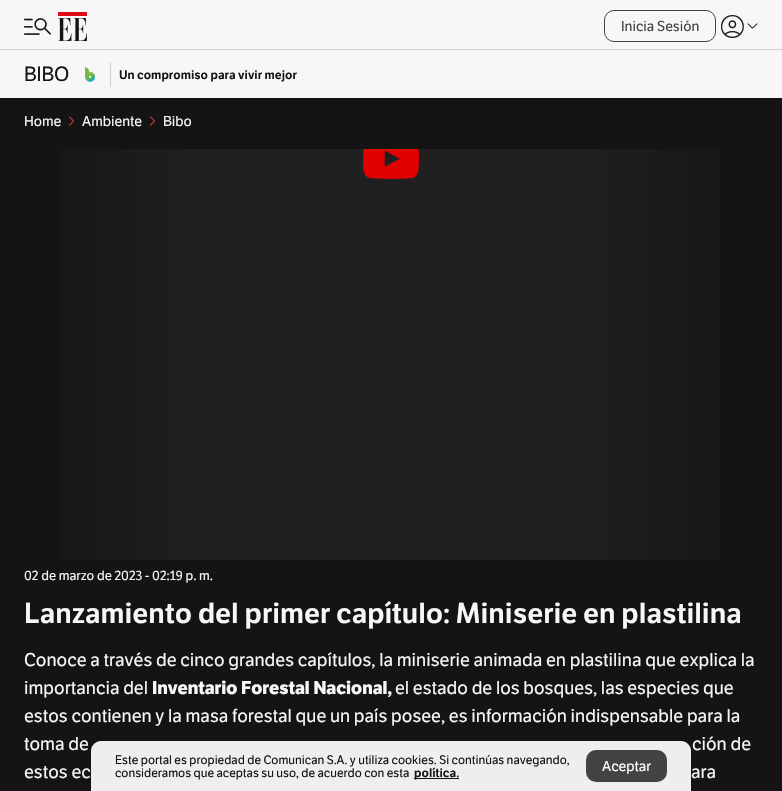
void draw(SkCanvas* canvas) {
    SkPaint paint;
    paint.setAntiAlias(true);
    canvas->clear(0xFF141414);
    paint.setColor(0xFFF7F7F7);
    canvas->drawRect(SkRect::MakeXYWH(0, 0, 782, 98), paint);
    canvas->drawImageRect(SkImages::DeferredFromEncodedData(SkData::MakeFromFileName("img1.png")), SkRect::MakeXYWH(24, 18, 27, 17), SkSamplingOptions());
    canvas->drawImageRect(SkImages::DeferredFromEncodedData(SkData::MakeFromFileName("img2.png")), SkRect::MakeXYWH(58, 12, 29, 29), SkSamplingOptions());
    paint.setStyle(SkPaint::kStroke_Style);
    paint.setStrokeWidth(1);
    paint.setColor(0xFF434343);
    canvas->drawRoundRect(SkRect::MakeXYWH(604.5f, 10.5f, 111, 31), 9.5f, 9.5f, paint);
    SkFont font1(fontMgr->matchFamilyStyle("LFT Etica", SkFontStyle::Normal()), 14);
    font1.setSubpixel(true);
    paint.setStyle(SkPaint::kFill_Style);
    canvas->drawString("Inicia Sesión", 621, 31, font1, paint);
    canvas->drawImageRect(SkImages::DeferredFromEncodedData(SkData::MakeFromFileName("img3.png")), SkRect::MakeXYWH(721, 15, 23, 23), SkSamplingOptions());
    canvas->drawImageRect(SkImages::DeferredFromEncodedData(SkData::MakeFromFileName("img4.png")), SkRect::MakeXYWH(747, 23, 11, 6), SkSamplingOptions());
    paint.setColor(0xFFCFCFCF);
    canvas->drawRect(SkRect::MakeXYWH(0, 49, 782, 1), paint);
    SkFont font2(fontMgr->matchFamilyStyle("LFT Etica", SkFontStyle::Normal()), 20);
    font2.setSubpixel(true);
    paint.setColor(0xFF141414);
    canvas->drawString("BIBO", 24, 81, font2, paint);
    paint.setColor(0xFFCFCFCF);
    canvas->drawRect(SkRect::MakeXYWH(110, 62, 1, 25), paint);
    canvas->drawImageRect(SkImages::DeferredFromEncodedData(SkData::MakeFromFileName("img5.png")), SkRect::MakeXYWH(85, 67, 10, 15), SkSamplingOptions());
    SkFont font3(fontMgr->matchFamilyStyle("LFT Etica", SkFontStyle(600, SkFontStyle::kNormal_Width, SkFontStyle::kUpright_Slant)), 12);
    font3.setSubpixel(true);
    paint.setColor(0xFF141414);
    canvas->drawString("Un compromiso para vivir mejor", 119, 79, font3, paint);
    paint.setColor(0xFFF7F7F7);
    canvas->drawString("Home", 24, 126, font1, paint);
    canvas->drawImageRect(SkImages::DeferredFromEncodedData(SkData::MakeFromFileName("img6.png")), SkRect::MakeXYWH(69, 116, 5, 10), SkSamplingOptions());
    canvas->drawString("Ambiente", 82, 126, font1, paint);
    canvas->drawImageRect(SkImages::DeferredFromEncodedData(SkData::MakeFromFileName("img6.png")), SkRect::MakeXYWH(150, 116, 5, 10), SkSamplingOptions());
    canvas->drawString("Bibo", 163, 126, font1, paint);
    {
        const SkColor colors[] = {0xFF141414, 0xFF202020, 0xFF202020, 0xFF141414};
        const float stops[] = {0, 0.25f, 0.75f, 1};
        const SkPoint ends[] = {{758, 354}, {24, 355}};
        paint.setShader(SkGradientShader::MakeLinear(ends, colors, stops, 4, SkTileMode::kClamp));
        paint.setAlpha(255);
    }
    canvas->drawRect(SkRect::MakeXYWH(62, 149, 658, 411), paint);
    canvas->drawImageRect(SkImages::DeferredFromEncodedData(SkData::MakeFromFileName("img7.png")), SkRect::MakeXYWH(363, 149, 56, 30), SkSamplingOptions());
    SkFont font4(fontMgr->matchFamilyStyle("LFT Etica", SkFontStyle::Normal()), 13);
    font4.setSubpixel(true);
    paint.setShader(nullptr);
    paint.setColor(0xFFF7F7F7);
    canvas->drawString("02 de marzo de 2023 - 02:19 p. m.", 24, 580, font4, paint);
    SkFont font5(fontMgr->matchFamilyStyle("LFT Etica", SkFontStyle(600, SkFontStyle::kNormal_Width, SkFontStyle::kUpright_Slant)), 28);
    font5.setSubpixel(true);
    canvas->drawString("Lanzamiento del primer capítulo: Miniserie en plastilina", 24, 623, font5, paint);
    SkFont font6(fontMgr->matchFamilyStyle("LFT Etica", SkFontStyle::Normal()), 18);
    font6.setSubpixel(true);
    canvas->drawString("Conoce a través de cinco grandes capítulos, la miniserie animada en plastilina que explica la", 24, 666, font6, paint);
    canvas->drawString("importancia del", 24, 694, font6, paint);
    SkFont font7(fontMgr->matchFamilyStyle("LFT Etica", SkFontStyle::Bold()), 18);
    font7.setSubpixel(true);
    canvas->drawString("Inventario Forestal Nacional,", 152, 694, font7, paint);
    canvas->drawString("el estado de los bosques, las especies que", 395, 694, font6, paint);
    canvas->drawString("estos contienen y la masa forestal que un país posee, es información indispensable para la", 24, 722, font6, paint);
    canvas->drawString("toma de", 24, 750, font6, paint);
    canvas->drawString("ción de", 692, 750, font6, paint);
    canvas->drawString("estos ec", 24, 778, font6, paint);
    canvas->drawString("ara", 691, 778, font6, paint);
    paint.setColor(0x29000000);
    paint.setMaskFilter(SkMaskFilter::MakeBlur(kNormal_SkBlurStyle, 3));
    canvas->drawRoundRect(SkRect::MakeXYWH(91, 740, 600, 50), 10, 10, paint);
    paint.setMaskFilter(nullptr);
    paint.setColor(0xFFEEEEEE);
    canvas->drawPath(SkPathBuilder().moveTo(101, 741).lineTo(681, 741).cubicTo(686.5f, 741, 691, 745.5f, 691, 751).lineTo(691, 791).lineTo(91, 791).lineTo(91, 751).cubicTo(91, 745.5f, 95.5f, 741, 101, 741).close().detach(), paint);
    SkFont font8(fontMgr->matchFamilyStyle("LFT Etica", SkFontStyle::Normal()), 12);
    font8.setSubpixel(true);
    paint.setColor(0xFF141414);
    canvas->drawString("Este portal es propiedad de Comunican S.A. y utiliza cookies. Si continúas navegando,", 115, 764, font8, paint);
    canvas->drawString("consideramos que aceptas su uso, de acuerdo con esta", 115, 777, font8, paint);
    canvas->drawRect(SkRect::MakeXYWH(414, 778, 45, 1), paint);
    canvas->drawString("política.", 414, 777, font3, paint);
    paint.setColor(0xFF434343);
    canvas->drawRoundRect(SkRect::MakeXYWH(586, 750, 81, 32), 10, 10, paint);
    paint.setColor(0xFFFFFFFF);
    canvas->drawString("Aceptar", 602, 771, font1, paint);
}
